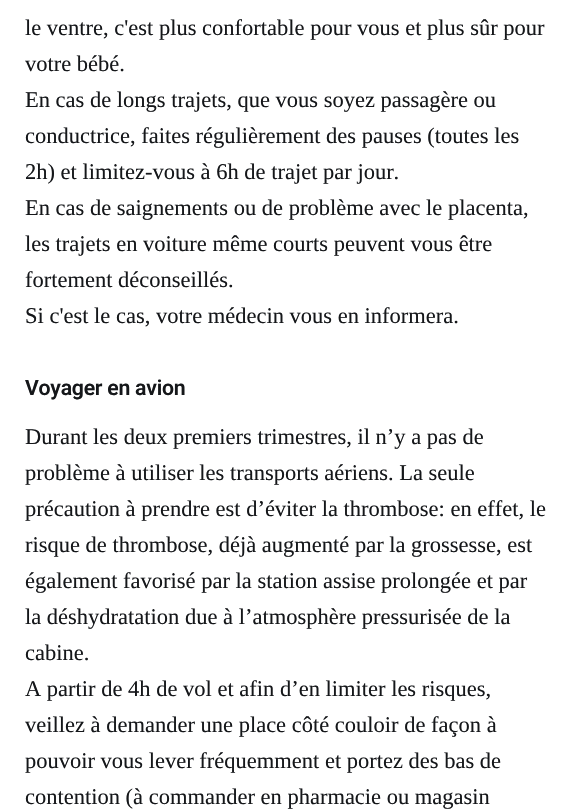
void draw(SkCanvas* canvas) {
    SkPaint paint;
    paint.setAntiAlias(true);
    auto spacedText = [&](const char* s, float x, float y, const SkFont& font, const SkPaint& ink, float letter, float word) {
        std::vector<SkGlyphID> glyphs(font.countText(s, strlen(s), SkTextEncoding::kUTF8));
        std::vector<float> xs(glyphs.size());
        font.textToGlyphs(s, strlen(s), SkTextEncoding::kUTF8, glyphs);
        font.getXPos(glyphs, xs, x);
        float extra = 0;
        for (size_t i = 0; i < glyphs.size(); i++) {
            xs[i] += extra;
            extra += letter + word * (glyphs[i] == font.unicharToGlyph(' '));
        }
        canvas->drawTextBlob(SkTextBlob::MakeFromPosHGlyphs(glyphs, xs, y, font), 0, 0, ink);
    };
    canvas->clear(0xFFFFFFFF);
    SkFont font1(fontMgr->matchFamilyStyle("Liberation Serif", SkFontStyle::Normal()), 22.5f);
    font1.setSubpixel(true);
    paint.setColor(0xFF15171A);
    canvas->drawString("le ventre, c'est plus confortable pour vous et plus sûr pour", 25, 35, font1, paint);
    canvas->drawString("votre bébé.", 25, 71, font1, paint);
    canvas->drawString("En cas de longs trajets, que vous soyez passagère ou", 25, 107, font1, paint);
    canvas->drawString("conductrice, faites régulièrement des pauses (toutes les", 25, 143, font1, paint);
    canvas->drawString("2h) et limitez-vous à 6h de trajet par jour.", 25, 179, font1, paint);
    canvas->drawString("En cas de saignements ou de problème avec le placenta,", 25, 215, font1, paint);
    canvas->drawString("les trajets en voiture même courts peuvent vous être", 25, 251, font1, paint);
    canvas->drawString("fortement déconseillés.", 25, 287, font1, paint);
    canvas->drawString("Si c'est le cas, votre médecin vous en informera.", 25, 323, font1, paint);
    SkFont font2(fontMgr->matchFamilyStyle("Roboto", SkFontStyle(600, SkFontStyle::kNormal_Width, SkFontStyle::kUpright_Slant)), 21.25f);
    font2.setSubpixel(true);
    spacedText("Voyager en avion", 25, 395, font2, paint, -0.25f, 0);
    canvas->drawString("Durant les deux premiers trimestres, il n’y a pas de", 25, 444, font1, paint);
    canvas->drawString("problème à utiliser les transports aériens. La seule", 25, 480, font1, paint);
    canvas->drawString("précaution à prendre est d’éviter la thrombose: en effet, le", 25, 516, font1, paint);
    canvas->drawString("risque de thrombose, déjà augmenté par la grossesse, est", 25, 552, font1, paint);
    canvas->drawString("également favorisé par la station assise prolongée et par", 25, 588, font1, paint);
    canvas->drawString("la déshydratation due à l’atmosphère pressurisée de la", 25, 624, font1, paint);
    canvas->drawString("cabine.", 25, 660, font1, paint);
    canvas->drawString("A partir de 4h de vol et afin d’en limiter les risques,", 25, 696, font1, paint);
    canvas->drawString("veillez à demander une place côté couloir de façon à", 25, 732, font1, paint);
    canvas->drawString("pouvoir vous lever fréquemment et portez des bas de", 25, 768, font1, paint);
    canvas->drawString("contention (à commander en pharmacie ou magasin", 25, 804, font1, paint);
}
